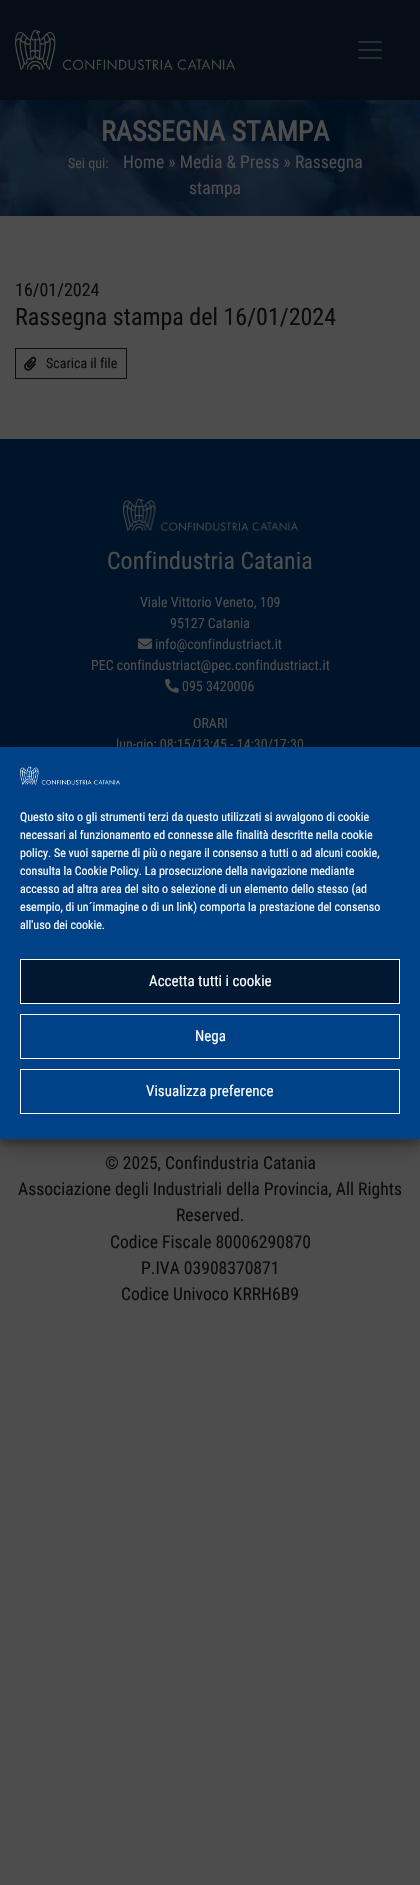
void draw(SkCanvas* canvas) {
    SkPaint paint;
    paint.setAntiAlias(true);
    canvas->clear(0xFF4D4D4D);
    paint.setColor(0xFF050E16);
    canvas->drawRect(SkRect::MakeXYWH(0, 0, 420, 100), paint);
    canvas->drawImageRect(SkImages::DeferredFromEncodedData(SkData::MakeFromFileName("img1.png")), SkRect::MakeXYWH(15, 30, 220, 41), SkSamplingOptions());
    canvas->drawImageRect(SkImages::DeferredFromEncodedData(SkData::MakeFromFileName("img2.png")), SkRect::MakeXYWH(358, 41, 24, 18), SkSamplingOptions());
    canvas->drawImageRect(SkImages::DeferredFromEncodedData(SkData::MakeFromFileName("img3.png")), SkRect::MakeXYWH(0, 100, 420, 116), SkSamplingOptions());
    SkFont font1(fontMgr->matchFamilyStyle("Roboto Condensed", SkFontStyle::Bold()), 28);
    font1.setSubpixel(true);
    paint.setColor(0xFF4D4D4D);
    canvas->drawString("RASSEGNA STAMPA", 101, 141, font1, paint);
    SkFont font2(fontMgr->matchFamilyStyle("Roboto Condensed", SkFontStyle::Normal()), 14);
    font2.setSubpixel(true);
    canvas->drawString("Sei qui:", 68, 168, font2, paint);
    SkFont font3(fontMgr->matchFamilyStyle("Roboto Condensed", SkFontStyle::Normal()), 17.6f);
    font3.setSubpixel(true);
    canvas->drawString("Home » Media & Press » Rassegna", 123, 168, font3, paint);
    canvas->drawString("stampa", 189, 194, font3, paint);
    SkFont font4(fontMgr->matchFamilyStyle("Roboto Condensed", SkFontStyle::Normal()), 18);
    font4.setSubpixel(true);
    paint.setColor(0xFF0A0B0C);
    canvas->drawString("16/01/2024", 15, 296, font4, paint);
    SkFont font5(fontMgr->matchFamilyStyle("Roboto Condensed", SkFontStyle::Normal()), 24);
    font5.setSubpixel(true);
    canvas->drawString("Rassegna stampa del 16/01/2024", 15, 325, font5, paint);
    paint.setStyle(SkPaint::kStroke_Style);
    paint.setStrokeWidth(1);
    canvas->drawRect(SkRect::MakeXYWH(15.5f, 348.5f, 111, 30), paint);
    canvas->drawImageRect(SkImages::DeferredFromEncodedData(SkData::MakeFromFileName("img4.png")), SkRect::MakeXYWH(24, 356, 13, 15), SkSamplingOptions());
    paint.setStyle(SkPaint::kFill_Style);
    canvas->drawString("Scarica il file", 46, 368, font2, paint);
    paint.setColor(0xFF001429);
    canvas->drawRect(SkRect::MakeXYWH(0, 439, 420, 308), paint);
    canvas->drawImageRect(SkImages::DeferredFromEncodedData(SkData::MakeFromFileName("img5.png")), SkRect::MakeXYWH(123, 499, 175, 32), SkSamplingOptions());
    paint.setColor(0xFF4D4D4D);
    canvas->drawString("Confindustria Catania", 107, 569, font5, paint);
    canvas->drawString("Viale Vittorio Veneto, 109", 140, 607, font2, paint);
    canvas->drawString("95127 Catania", 170, 628, font2, paint);
    canvas->drawImageRect(SkImages::DeferredFromEncodedData(SkData::MakeFromFileName("img6.png")), SkRect::MakeXYWH(138, 638, 14, 11), SkSamplingOptions());
    canvas->drawString("info@confindustriact.it", 155, 649, font2, paint);
    canvas->drawString("PEC confindustriact@pec.confindustriact.it", 91, 670, font2, paint);
    canvas->drawImageRect(SkImages::DeferredFromEncodedData(SkData::MakeFromFileName("img7.png")), SkRect::MakeXYWH(165, 678, 14, 15), SkSamplingOptions());
    canvas->drawString("095 3420006", 182, 691, font2, paint);
    canvas->drawString("ORARI", 193, 728, font2, paint);
    canvas->drawString("lun-gio: 08:15/13:45 - 14:30/17:30", 116, 749, font2, paint);
    paint.setColor(0x3B000000);
    paint.setMaskFilter(SkMaskFilter::MakeBlur(kNormal_SkBlurStyle, 3));
    canvas->drawRect(SkRect::MakeXYWH(0, 753, 420, 392), paint);
    paint.setMaskFilter(nullptr);
    paint.setColor(0x30000000);
    paint.setMaskFilter(SkMaskFilter::MakeBlur(kNormal_SkBlurStyle, 10));
    canvas->drawRect(SkRect::MakeXYWH(0, 757, 420, 392), paint);
    paint.setMaskFilter(nullptr);
    paint.setColor(0xFF004288);
    canvas->drawRect(SkRect::MakeXYWH(0, 747, 420, 392), paint);
    canvas->drawImageRect(SkImages::DeferredFromEncodedData(SkData::MakeFromFileName("img8.png")), SkRect::MakeXYWH(20, 766, 100, 19), SkSamplingOptions());
    SkFont font6(fontMgr->matchFamilyStyle("Roboto Condensed", SkFontStyle::Normal()), 12);
    font6.setSubpixel(true);
    paint.setColor(0xFFFFFFFF);
    canvas->drawString("Questo sito o gli strumenti terzi da questo utilizzati si avvalgono di cookie", 20, 821, font6, paint);
    canvas->drawString("necessari al funzionamento ed connesse alle finalità descritte nella cookie", 20, 839, font6, paint);
    canvas->drawString("policy. Se vuoi saperne di più o negare il consenso a tutti o ad alcuni cookie,", 20, 857, font6, paint);
    canvas->drawString("consulta la Cookie Policy. La prosecuzione della navigazione mediante", 20, 875, font6, paint);
    canvas->drawString("accesso ad altra area del sito o selezione di un elemento dello stesso (ad", 20, 893, font6, paint);
    canvas->drawString("esempio, di un´immagine o di un link) comporta la prestazione del consenso", 20, 911, font6, paint);
    canvas->drawString("all'uso dei cookie.", 20, 929, font6, paint);
    paint.setColor(0xFF001831);
    canvas->drawRect(SkRect::MakeXYWH(20.5f, 959.5f, 379, 44), paint);
    paint.setStyle(SkPaint::kStroke_Style);
    paint.setColor(0xFFFFFFFF);
    canvas->drawRect(SkRect::MakeXYWH(20.5f, 959.5f, 379, 44), paint);
    SkFont font7(fontMgr->matchFamilyStyle("Roboto Condensed", SkFontStyle::Normal()), 15);
    font7.setSubpixel(true);
    paint.setStyle(SkPaint::kFill_Style);
    canvas->drawString("Accetta tutti i cookie", 149, 986, font7, paint);
    paint.setStyle(SkPaint::kStroke_Style);
    canvas->drawRect(SkRect::MakeXYWH(20.5f, 1014.5f, 379, 44), paint);
    paint.setStyle(SkPaint::kFill_Style);
    canvas->drawString("Nega", 195, 1041, font7, paint);
    paint.setStyle(SkPaint::kStroke_Style);
    canvas->drawRect(SkRect::MakeXYWH(20.5f, 1069.5f, 379, 44), paint);
    paint.setStyle(SkPaint::kFill_Style);
    canvas->drawString("Visualizza preference", 146, 1096, font7, paint);
    paint.setColor(0xFF0A0B0C);
    canvas->drawString("© 2025, Confindustria Catania", 105, 1169, font3, paint);
    canvas->drawString("Associazione degli Industriali della Provincia, All Rights", 18, 1195, font3, paint);
    canvas->drawString("Reserved.", 176, 1221, font3, paint);
    canvas->drawString("Codice Fiscale 80006290870", 110, 1248, font3, paint);
    canvas->drawString("P.IVA 03908370871", 141, 1274, font3, paint);
    canvas->drawString("Codice Univoco KRRH6B9", 121, 1300, font3, paint);
}
